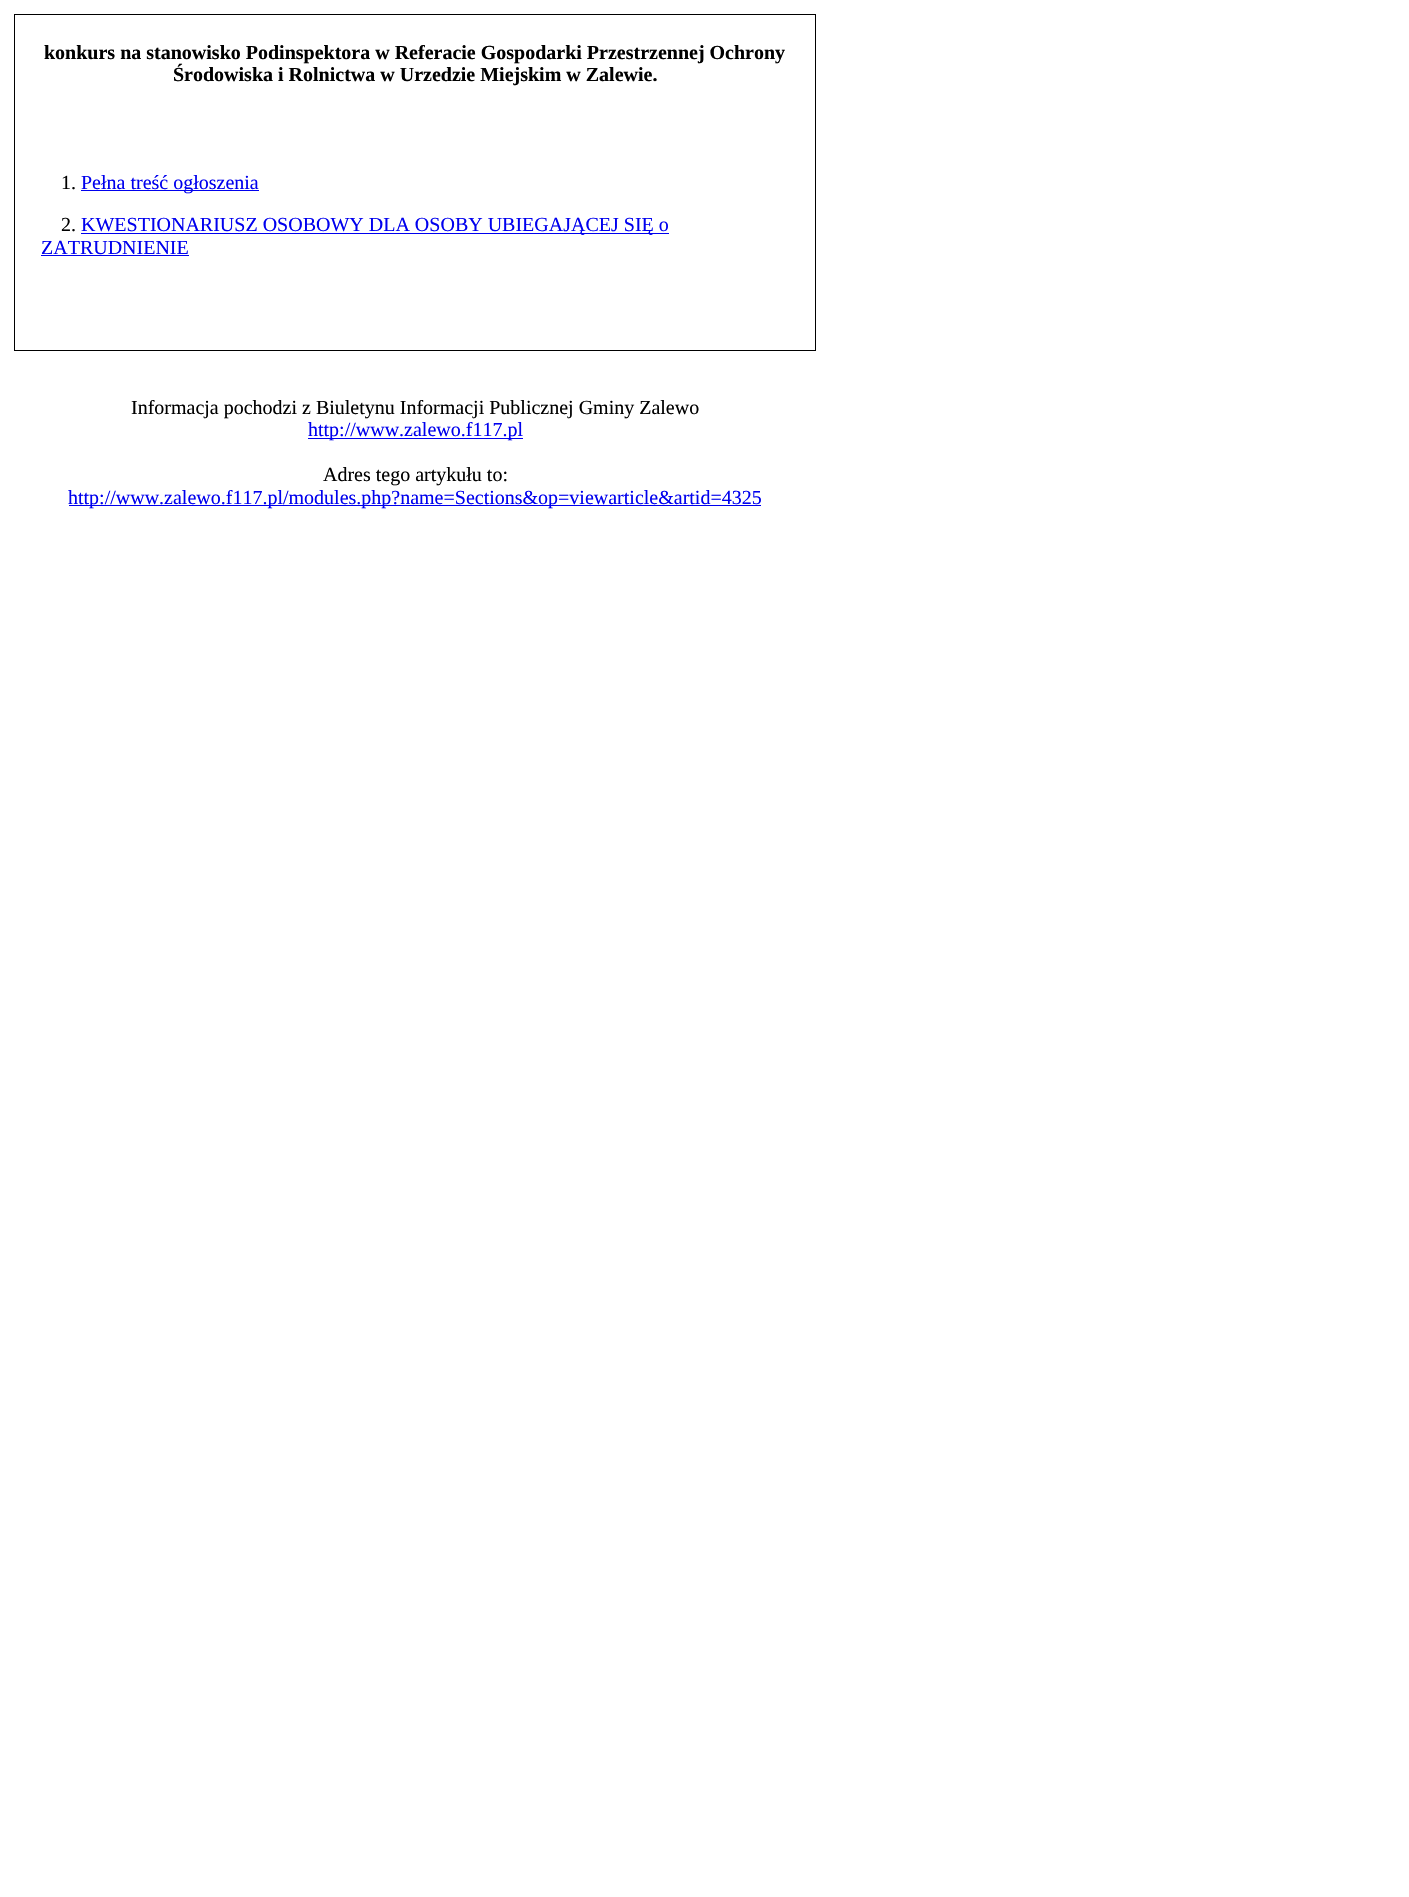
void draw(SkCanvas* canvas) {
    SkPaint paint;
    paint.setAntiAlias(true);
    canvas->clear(0xFFFFFFFF);
    paint.setColor(0xFF000000);
    canvas->drawRect(SkRect::MakeXYWH(14, 14, 802, 337), paint);
    paint.setColor(0xFFFFFFFF);
    canvas->drawRect(SkRect::MakeXYWH(15, 15, 800, 335), paint);
    SkFont font1(fontMgr->matchFamilyStyle("Liberation Serif", SkFontStyle::Bold()), 20);
    font1.setSubpixel(true);
    paint.setColor(0xFF000000);
    canvas->drawString("konkurs na stanowisko Podinspektora w Referacie Gospodarki Przestrzennej Ochrony", 44, 59, font1, paint);
    canvas->drawString("Środowiska i Rolnictwa w Urzedzie Miejskim w Zalewie.", 173, 81, font1, paint);
    SkFont font2(fontMgr->matchFamilyStyle("Liberation Serif", SkFontStyle::Normal()), 20);
    font2.setSubpixel(true);
    canvas->drawString("1.", 61, 189, font2, paint);
    paint.setColor(0xFF0000EE);
    canvas->drawRect(SkRect::MakeXYWH(81, 190, 178, 1), paint);
    canvas->drawString("Pełna treść ogłoszenia", 81, 189, font2, paint);
    paint.setColor(0xFF000000);
    canvas->drawString("2.", 61, 231, font2, paint);
    paint.setColor(0xFF0000EE);
    canvas->drawRect(SkRect::MakeXYWH(81, 233, 588, 1), paint);
    canvas->drawString("KWESTIONARIUSZ OSOBOWY DLA OSOBY UBIEGAJĄCEJ SIĘ o", 81, 231, font2, paint);
    canvas->drawString("ZATRUDNIENIE", 41, 254, font2, paint);
    canvas->drawRect(SkRect::MakeXYWH(41, 255, 148, 1), paint);
    paint.setColor(0xFF000000);
    canvas->drawString("Informacja pochodzi z Biuletynu Informacji Publicznej Gminy Zalewo", 131, 414, font2, paint);
    paint.setColor(0xFF0000EE);
    canvas->drawRect(SkRect::MakeXYWH(308, 438, 215, 1), paint);
    canvas->drawString("http://www.zalewo.f117.pl", 308, 436, font2, paint);
    paint.setColor(0xFF000000);
    canvas->drawString("Adres tego artykułu to:", 323, 481, font2, paint);
    paint.setColor(0xFF0000EE);
    canvas->drawRect(SkRect::MakeXYWH(69, 505, 692, 1), paint);
    canvas->drawString("http://www.zalewo.f117.pl/modules.php?name=Sections&op=viewarticle&artid=4325", 68, 504, font2, paint);
}
